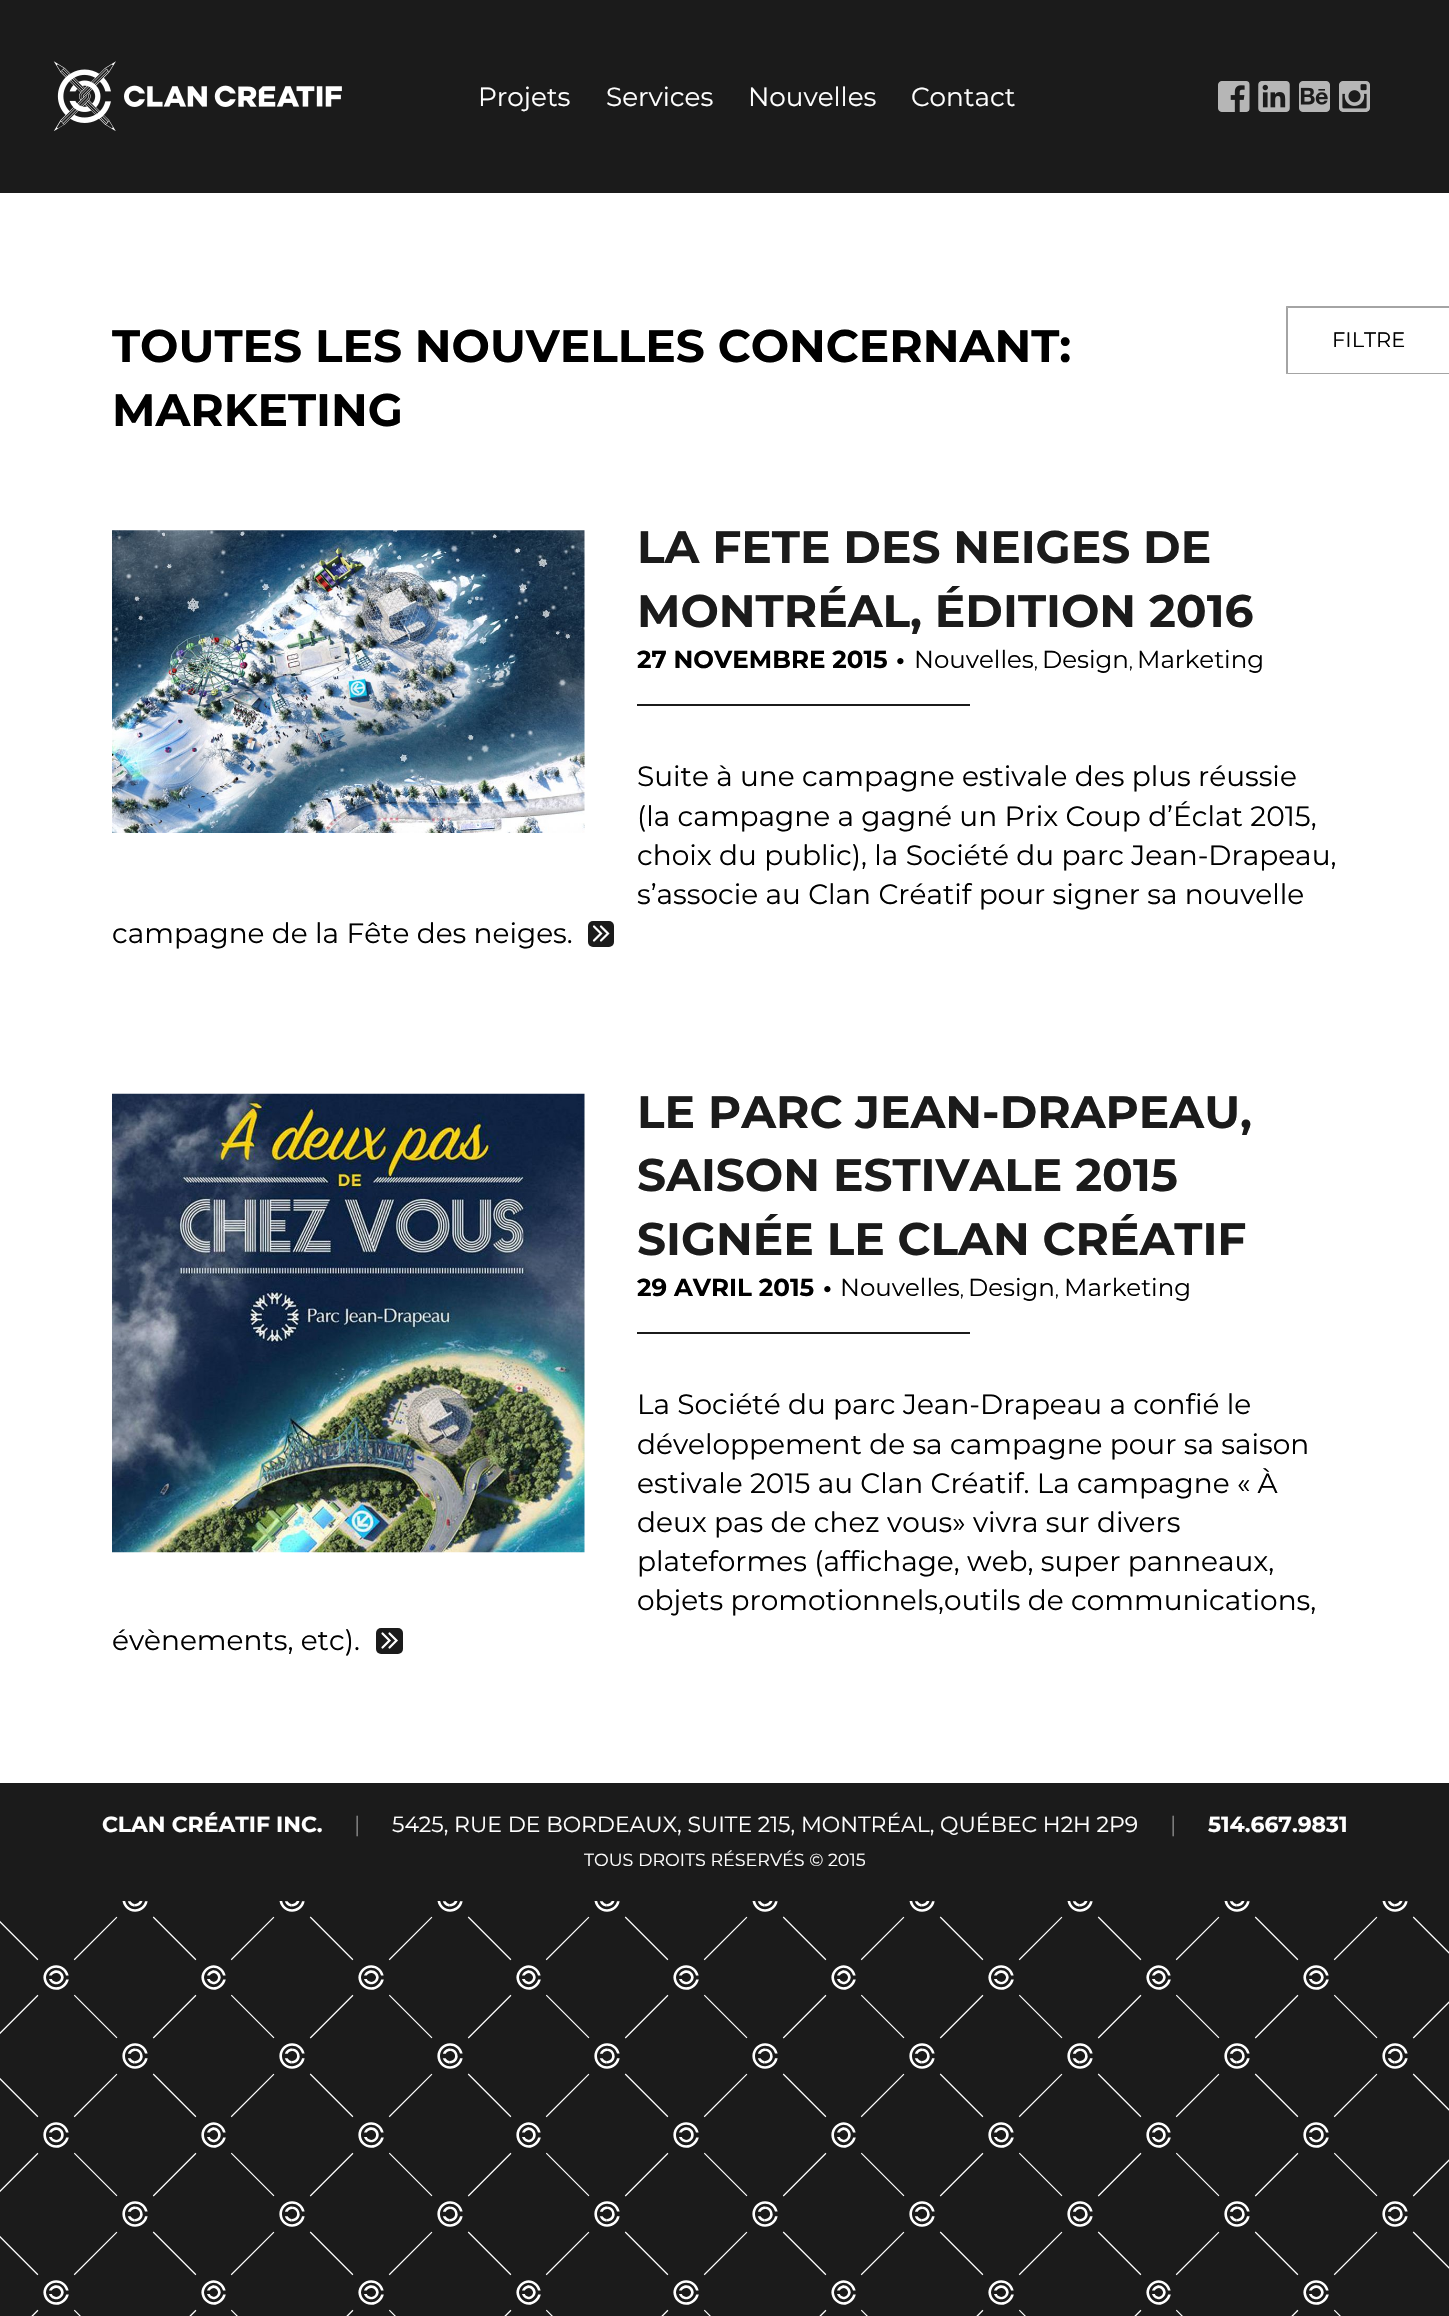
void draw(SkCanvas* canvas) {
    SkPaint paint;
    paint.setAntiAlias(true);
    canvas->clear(0xFF1B1B1B);
    canvas->drawImageRect(SkImages::DeferredFromEncodedData(SkData::MakeFromFileName("img1.png")), SkRect::MakeXYWH(0, 1901, 1449, 415), SkSamplingOptions());
    canvas->drawImageRect(SkImages::DeferredFromEncodedData(SkData::MakeFromFileName("img2.png")), SkRect::MakeXYWH(53, 61, 289, 70), SkSamplingOptions());
    SkFont font1(fontMgr->matchFamilyStyle("Montserrat", SkFontStyle::Normal()), 26.25f);
    font1.setSubpixel(true);
    paint.setColor(0xFFFFFFFF);
    canvas->drawString("Projets", 478, 106, font1, paint);
    canvas->drawString("Services", 606, 106, font1, paint);
    canvas->drawString("Nouvelles", 748, 106, font1, paint);
    canvas->drawString("Contact", 911, 106, font1, paint);
    canvas->drawImageRect(SkImages::DeferredFromEncodedData(SkData::MakeFromFileName("img3.png")), SkRect::MakeXYWH(1218, 81, 32, 31), SkSamplingOptions());
    canvas->drawImageRect(SkImages::DeferredFromEncodedData(SkData::MakeFromFileName("img4.png")), SkRect::MakeXYWH(1258, 81, 32, 31), SkSamplingOptions());
    canvas->drawImageRect(SkImages::DeferredFromEncodedData(SkData::MakeFromFileName("img5.png")), SkRect::MakeXYWH(1299, 81, 31, 31), SkSamplingOptions());
    canvas->drawImageRect(SkImages::DeferredFromEncodedData(SkData::MakeFromFileName("img6.png")), SkRect::MakeXYWH(1339, 81, 31, 31), SkSamplingOptions());
    canvas->drawRect(SkRect::MakeXYWH(0, 193, 1449, 1590), paint);
    SkFont font2(fontMgr->matchFamilyStyle("Montserrat", SkFontStyle::Bold()), 45.5f);
    font2.setSubpixel(true);
    paint.setColor(0xFF000000);
    canvas->drawString("TOUTES LES NOUVELLES CONCERNANT:", 112, 362, font2, paint);
    canvas->drawString("MARKETING", 112, 426, font2, paint);
    canvas->drawImageRect(SkImages::DeferredFromEncodedData(SkData::MakeFromFileName("img7.png")), SkRect::MakeXYWH(112, 530, 473, 303), SkSamplingOptions());
    canvas->save();
    canvas->clipRect(SkRect::MakeXYWH(112, 530, 1225, 424));
    paint.setColor(0xFF1B1B1B);
    canvas->drawString("LA FÊTE DES NEIGES DE", 637, 563, font2, paint);
    canvas->restore();
    canvas->drawString("MONTRÉAL, ÉDITION 2016", 637, 627, font2, paint);
    SkFont font3(fontMgr->matchFamilyStyle("Montserrat", SkFontStyle::Bold()), 24.5f);
    font3.setSubpixel(true);
    paint.setColor(0xFF000000);
    canvas->drawString("27 NOVEMBRE 2015", 637, 668, font3, paint);
    canvas->drawString("•", 896, 668, font3, paint);
    SkFont font4(fontMgr->matchFamilyStyle("Montserrat", SkFontStyle::Normal()), 24.5f);
    font4.setSubpixel(true);
    canvas->drawString("Nouvelles", 914, 668, font4, paint);
    SkFont font5(fontMgr->matchFamilyStyle("Montserrat", SkFontStyle::Normal()), 17.5f);
    font5.setSubpixel(true);
    canvas->drawString(",", 1034, 668, font5, paint);
    canvas->drawString("Design", 1042, 668, font4, paint);
    canvas->drawString(",", 1129, 668, font5, paint);
    canvas->drawString("Marketing", 1137, 668, font4, paint);
    paint.setColor(0xFF1B1B1B);
    canvas->drawRect(SkRect::MakeXYWH(637, 704, 333, 2), paint);
    SkFont font6(fontMgr->matchFamilyStyle("Montserrat", SkFontStyle::Normal()), 28);
    font6.setSubpixel(true);
    paint.setColor(0xFF000000);
    canvas->drawString("Suite à une campagne estivale des plus réussie", 637, 786, font6, paint);
    canvas->drawString("(la campagne a gagné un Prix Coup d’Éclat 2015,", 637, 826, font6, paint);
    canvas->drawString("choix du public), la Société du parc Jean-Drapeau,", 637, 865, font6, paint);
    canvas->drawString("s’associe au Clan Créatif pour signer sa nouvelle", 637, 904, font6, paint);
    canvas->drawString("campagne de la Fête des neiges.", 112, 943, font6, paint);
    paint.setColor(0xFF1B1B1B);
    canvas->drawRoundRect(SkRect::MakeXYWH(588, 921, 26, 26), 5, 5, paint);
    paint.setStyle(SkPaint::kStroke_Style);
    paint.setStrokeWidth(2.2f);
    paint.setStrokeCap(SkPaint::kRound_Cap);
    paint.setColor(0xFFFFFFFF);
    canvas->drawPath(SkPathBuilder().moveTo(594, 926.5f).lineTo(601, 933.5f).lineTo(594, 940.5f).moveTo(601, 926.5f).lineTo(608, 933.5f).lineTo(601, 940.5f).detach(), paint);
    canvas->drawImageRect(SkImages::DeferredFromEncodedData(SkData::MakeFromFileName("img8.png")), SkRect::MakeXYWH(112, 1093, 473, 460), SkSamplingOptions());
    paint.setStyle(SkPaint::kFill_Style);
    paint.setColor(0xFF1B1B1B);
    canvas->drawString("LE PARC JEAN-DRAPEAU,", 637, 1128, font2, paint);
    canvas->drawString("SAISON ESTIVALE 2015", 637, 1191, font2, paint);
    canvas->drawString("SIGNÉE LE CLAN CRÉATIF", 637, 1255, font2, paint);
    paint.setColor(0xFF000000);
    canvas->drawString("29 AVRIL 2015", 637, 1296, font3, paint);
    canvas->drawString("•", 823, 1296, font3, paint);
    canvas->drawString("Nouvelles", 840, 1296, font4, paint);
    canvas->drawString(",", 960, 1296, font5, paint);
    canvas->drawString("Design", 968, 1296, font4, paint);
    canvas->drawString(",", 1055, 1296, font5, paint);
    canvas->drawString("Marketing", 1064, 1296, font4, paint);
    paint.setColor(0xFF1B1B1B);
    canvas->drawRect(SkRect::MakeXYWH(637, 1332, 333, 2), paint);
    paint.setColor(0xFF000000);
    canvas->drawString("La Société du parc Jean-Drapeau a confié le", 637, 1414, font6, paint);
    canvas->drawString("développement de sa campagne pour sa saison", 637, 1454, font6, paint);
    canvas->drawString("estivale 2015 au Clan Créatif. La campagne « À", 637, 1493, font6, paint);
    canvas->drawString("deux pas de chez vous» vivra sur divers", 637, 1532, font6, paint);
    canvas->drawString("plateformes (affichage, web, super panneaux,", 637, 1571, font6, paint);
    canvas->drawString("objets promotionnels,outils de communications,", 637, 1610, font6, paint);
    canvas->drawString("évènements, etc).", 112, 1650, font6, paint);
    paint.setColor(0xFF1B1B1B);
    canvas->drawRoundRect(SkRect::MakeXYWH(376, 1628, 27, 26), 5, 5, paint);
    paint.setStyle(SkPaint::kStroke_Style);
    paint.setColor(0xFFFFFFFF);
    canvas->drawPath(SkPathBuilder().moveTo(382.5f, 1633.5f).lineTo(389.5f, 1640.5f).lineTo(382.5f, 1647.5f).moveTo(389.5f, 1633.5f).lineTo(396.5f, 1640.5f).lineTo(389.5f, 1647.5f).detach(), paint);
    paint.setStyle(SkPaint::kFill_Style);
    paint.setColor(0xFFA4A4A4);
    canvas->drawPath(SkPathBuilder().moveTo(1286, 306).lineTo(1449, 306).lineTo(1449, 308).lineTo(1288, 308).close().detach(), paint);
    canvas->drawPath(SkPathBuilder().moveTo(1449, 374).lineTo(1286, 374).lineTo(1288, 373).lineTo(1449, 373).close().detach(), paint);
    paint.setColor(0x661B1B1B);
    canvas->drawPath(SkPathBuilder().moveTo(1286, 374).lineTo(1286, 306).lineTo(1288, 308).lineTo(1288, 373).close().detach(), paint);
    SkFont font7(fontMgr->matchFamilyStyle("Montserrat", SkFontStyle::Normal()), 21);
    font7.setSubpixel(true);
    paint.setColor(0xFF000000);
    canvas->drawString("FILTRE", 1332, 347, font7, paint);
    SkFont font8(fontMgr->matchFamilyStyle("Montserrat", SkFontStyle::Bold()), 21.9f);
    font8.setSubpixel(true);
    paint.setColor(0xFFFFFFFF);
    canvas->drawString("CLAN CRÉATIF INC.", 102, 1832, font8, paint);
    SkFont font9(fontMgr->matchFamilyStyle("Montserrat", SkFontStyle::Normal()), 21.9f);
    font9.setSubpixel(true);
    paint.setColor(0xFF7F7F7F);
    canvas->drawString("|", 354, 1832, font9, paint);
    paint.setColor(0xFFFFFFFF);
    canvas->drawString("5425, RUE DE BORDEAUX, SUITE 215, MONTRÉAL, QUÉBEC H2H 2P9", 392, 1832, font9, paint);
    paint.setColor(0xFF7F7F7F);
    canvas->drawString("|", 1170, 1832, font9, paint);
    paint.setColor(0xFFFFFFFF);
    canvas->drawString("514.667.9831", 1208, 1832, font8, paint);
    canvas->drawString("TOUS DROITS RÉSERVÉS © 2015", 584, 1866, font5, paint);
}
